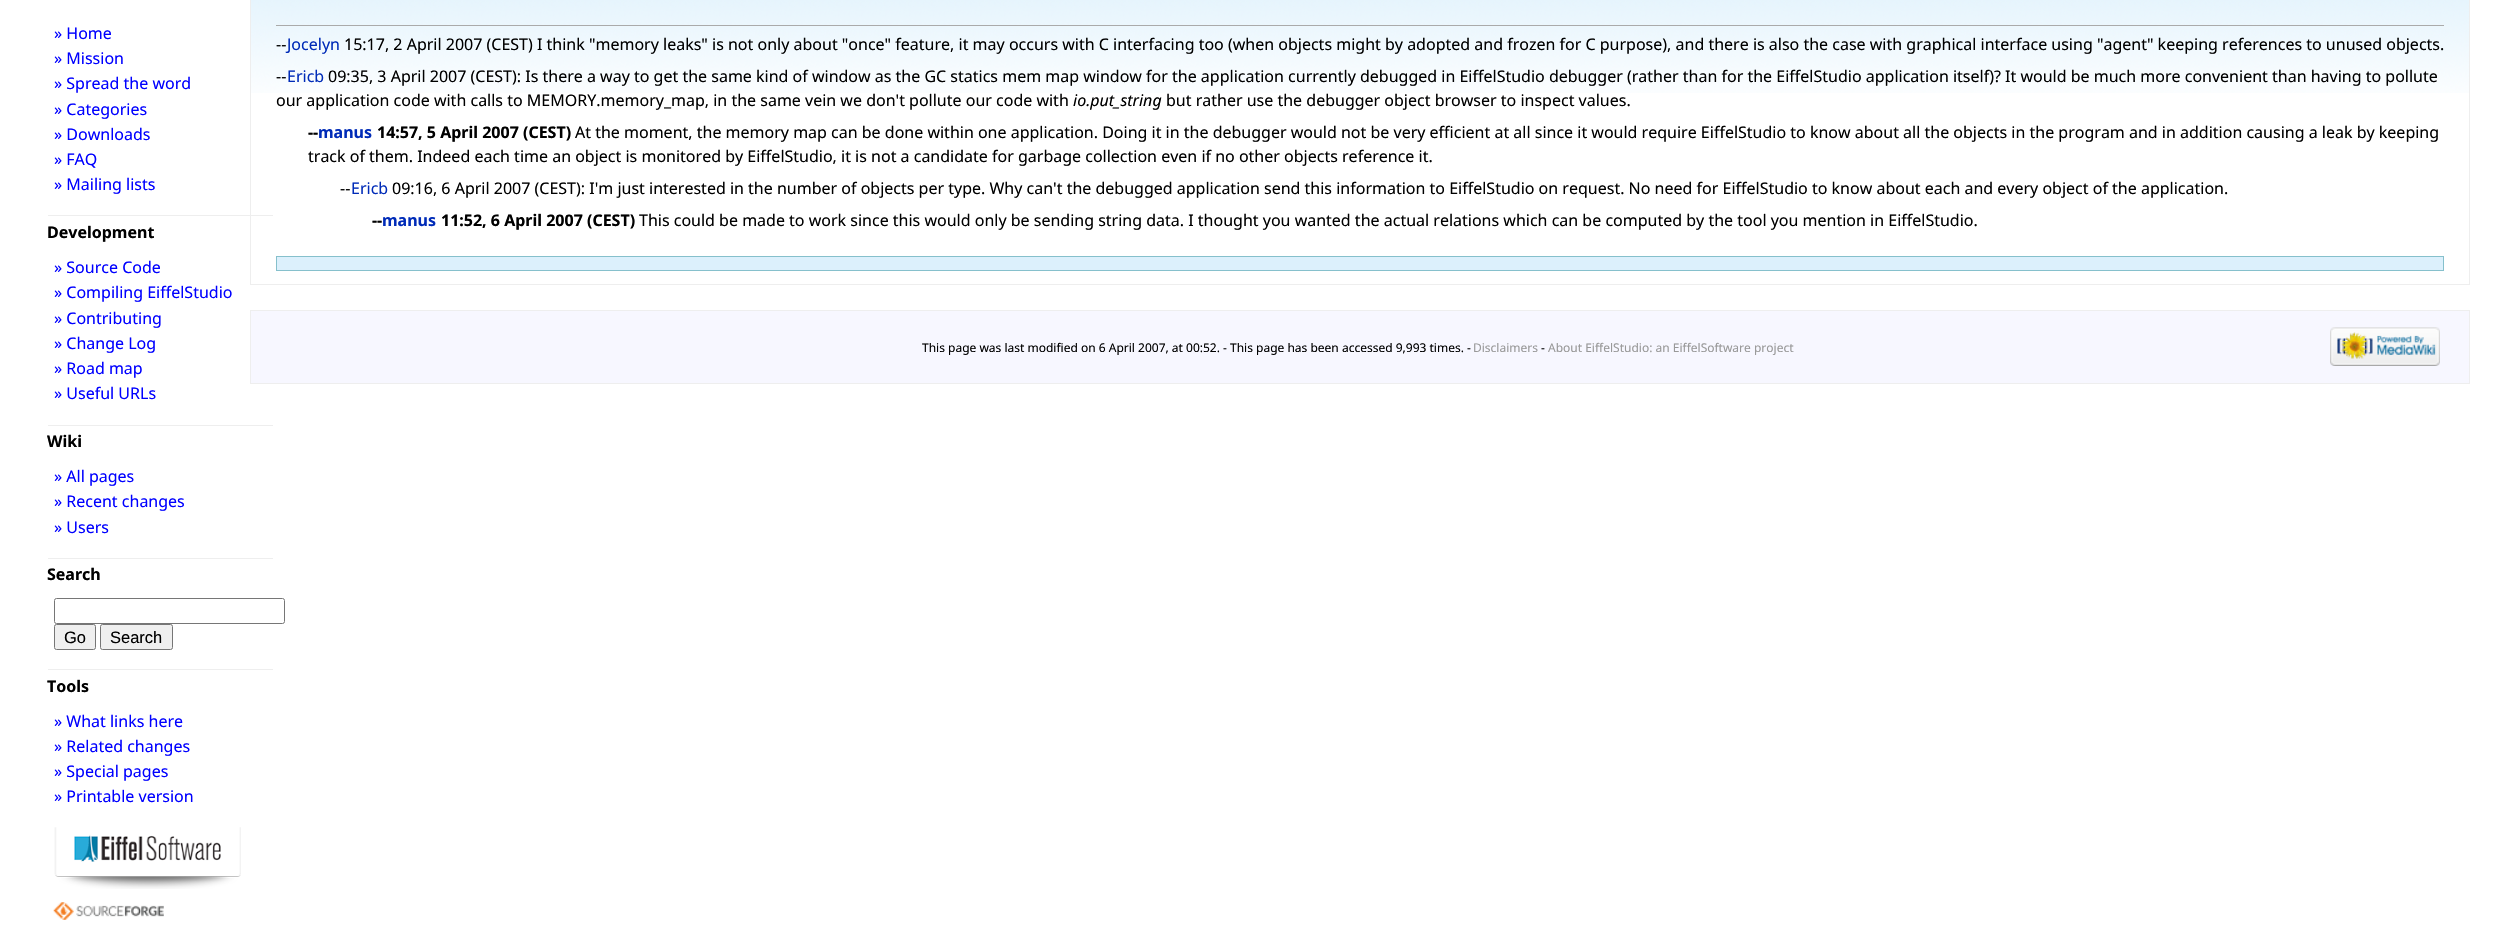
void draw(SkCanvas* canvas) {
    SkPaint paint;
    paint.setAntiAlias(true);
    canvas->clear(0xFFFFFFFF);
    SkFont font1(fontMgr->matchFamilyStyle("Noto Sans", SkFontStyle::Normal()), 16);
    font1.setSubpixel(true);
    paint.setColor(0xFF0000FF);
    canvas->drawString("» Home", 54, 39, font1, paint);
    canvas->drawString("» Mission", 54, 64, font1, paint);
    canvas->drawString("» Spread the word", 54, 89, font1, paint);
    canvas->drawString("» Categories", 54, 115, font1, paint);
    canvas->drawString("» Downloads", 54, 140, font1, paint);
    canvas->drawString("» FAQ", 54, 165, font1, paint);
    canvas->drawString("» Mailing lists", 54, 190, font1, paint);
    canvas->drawImageRect(SkImages::DeferredFromEncodedData(SkData::MakeFromFileName("img3.png")), SkRect::MakeXYWH(251, 0, 2218, 93), SkSamplingOptions());
    paint.setStyle(SkPaint::kStroke_Style);
    paint.setStrokeWidth(1);
    paint.setColor(0xFFEEEEEE);
    canvas->drawRect(SkRect::MakeXYWH(250.5f, -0.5f, 2219, 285), paint);
    paint.setStyle(SkPaint::kFill_Style);
    canvas->drawRect(SkRect::MakeXYWH(48, 215, 225, 1), paint);
    SkFont font2(fontMgr->matchFamilyStyle("Noto Sans", SkFontStyle::Bold()), 16);
    font2.setSubpixel(true);
    paint.setColor(0xFF000000);
    canvas->drawString("Development", 47, 238, font2, paint);
    paint.setColor(0xFF0000FF);
    canvas->drawString("» Source Code", 54, 273, font1, paint);
    canvas->drawString("» Compiling EiffelStudio", 54, 298, font1, paint);
    canvas->drawString("» Contributing", 54, 324, font1, paint);
    canvas->drawString("» Change Log", 54, 349, font1, paint);
    canvas->drawString("» Road map", 54, 374, font1, paint);
    canvas->drawString("» Useful URLs", 54, 399, font1, paint);
    paint.setColor(0xFFEEEEEE);
    canvas->drawRect(SkRect::MakeXYWH(48, 425, 225, 1), paint);
    paint.setColor(0xFF000000);
    canvas->drawString("Wiki", 47, 447, font2, paint);
    paint.setColor(0xFF0000FF);
    canvas->drawString("» All pages", 54, 482, font1, paint);
    canvas->drawString("» Recent changes", 54, 507, font1, paint);
    canvas->drawString("» Users", 54, 533, font1, paint);
    paint.setColor(0xFFEEEEEE);
    canvas->drawRect(SkRect::MakeXYWH(48, 558, 225, 1), paint);
    paint.setColor(0xFF000000);
    canvas->drawString("Search", 47, 580, font2, paint);
    paint.setStyle(SkPaint::kStroke_Style);
    paint.setColor(0xFF767676);
    canvas->drawRoundRect(SkRect::MakeXYWH(54.5f, 598.5f, 230, 25), 2, 2, paint);
    paint.setStyle(SkPaint::kFill_Style);
    paint.setColor(0xFFEFEFEF);
    canvas->drawRoundRect(SkRect::MakeXYWH(54.5f, 624.5f, 41, 25), 2, 2, paint);
    paint.setStyle(SkPaint::kStroke_Style);
    paint.setColor(0xFF767676);
    canvas->drawRoundRect(SkRect::MakeXYWH(54.5f, 624.5f, 41, 25), 2, 2, paint);
    SkFont font3(fontMgr->matchFamilyStyle("Liberation Sans", SkFontStyle::Normal()), 16.5f);
    font3.setSubpixel(true);
    paint.setStyle(SkPaint::kFill_Style);
    paint.setColor(0xFF000000);
    canvas->drawString("Go", 64, 643, font3, paint);
    paint.setColor(0xFFEFEFEF);
    canvas->drawRoundRect(SkRect::MakeXYWH(100.5f, 624.5f, 72, 25), 2, 2, paint);
    paint.setStyle(SkPaint::kStroke_Style);
    paint.setColor(0xFF767676);
    canvas->drawRoundRect(SkRect::MakeXYWH(100.5f, 624.5f, 72, 25), 2, 2, paint);
    paint.setStyle(SkPaint::kFill_Style);
    paint.setColor(0xFF000000);
    canvas->drawString("Search", 110, 643, font3, paint);
    paint.setColor(0xFFEEEEEE);
    canvas->drawRect(SkRect::MakeXYWH(48, 669, 225, 1), paint);
    paint.setColor(0xFF000000);
    canvas->drawString("Tools", 47, 692, font2, paint);
    paint.setColor(0xFF0000FF);
    canvas->drawString("» What links here", 54, 727, font1, paint);
    canvas->drawString("» Related changes", 54, 752, font1, paint);
    canvas->drawString("» Special pages", 54, 777, font1, paint);
    canvas->drawString("» Printable version", 54, 802, font1, paint);
    canvas->drawImageRect(SkImages::DeferredFromEncodedData(SkData::MakeFromFileName("img1.png")), SkRect::MakeXYWH(54, 827, 187, 62), SkSamplingOptions());
    canvas->drawImageRect(SkImages::DeferredFromEncodedData(SkData::MakeFromFileName("img2.png")), SkRect::MakeXYWH(53, 902, 111, 18), SkSamplingOptions());
    paint.setColor(0xFFAAAAAA);
    canvas->drawRect(SkRect::MakeXYWH(276, 25, 2168, 1), paint);
    paint.setColor(0xFF000000);
    canvas->drawString("--", 276, 50, font1, paint);
    paint.setColor(0xFF002BB8);
    canvas->drawString("Jocelyn", 287, 50, font1, paint);
    paint.setColor(0xFF000000);
    canvas->drawString("15:17, 2 April 2007 (CEST) I think \"memory leaks\" is not only about \"once\" feature, it may occurs with C interfacing too (when objects might by adopted and frozen for C purpose), and there is also the case with graphical interface using \"agent\" keeping references to unused objects.", 344, 50, font1, paint);
    canvas->drawString("--", 276, 82, font1, paint);
    paint.setColor(0xFF002BB8);
    canvas->drawString("Ericb", 287, 82, font1, paint);
    paint.setColor(0xFF000000);
    canvas->drawString("09:35, 3 April 2007 (CEST): Is there a way to get the same kind of window as the GC statics mem map window for the application currently debugged in EiffelStudio debugger (rather than for the EiffelStudio application itself)? It would be much more convenient than having to pollute", 328, 82, font1, paint);
    canvas->drawString("our application code with calls to MEMORY.memory_map, in the same vein we don't pollute our code with", 276, 106, font1, paint);
    SkFont font4(fontMgr->matchFamilyStyle("Noto Sans", SkFontStyle::Italic()), 16);
    font4.setSubpixel(true);
    canvas->drawString("io.put_string", 1073, 106, font4, paint);
    canvas->drawString("but rather use the debugger object browser to inspect values.", 1166, 106, font1, paint);
    canvas->drawString("--", 308, 138, font2, paint);
    paint.setColor(0xFF002BB8);
    canvas->drawString("manus", 318, 138, font2, paint);
    paint.setColor(0xFF000000);
    canvas->drawString("14:57, 5 April 2007 (CEST)", 377, 138, font2, paint);
    canvas->drawString("At the moment, the memory map can be done within one application. Doing it in the debugger would not be very efficient at all since it would require EiffelStudio to know about all the objects in the program and in addition causing a leak by keeping", 575, 138, font1, paint);
    canvas->drawString("track of them. Indeed each time an object is monitored by EiffelStudio, it is not a candidate for garbage collection even if no other objects reference it.", 308, 162, font1, paint);
    canvas->drawString("--", 340, 194, font1, paint);
    paint.setColor(0xFF002BB8);
    canvas->drawString("Ericb", 351, 194, font1, paint);
    paint.setColor(0xFF000000);
    canvas->drawString("09:16, 6 April 2007 (CEST): I'm just interested in the number of objects per type. Why can't the debugged application send this information to EiffelStudio on request. No need for EiffelStudio to know about each and every object of the application.", 392, 194, font1, paint);
    canvas->drawString("--", 372, 226, font2, paint);
    paint.setColor(0xFF002BB8);
    canvas->drawString("manus", 382, 226, font2, paint);
    paint.setColor(0xFF000000);
    canvas->drawString("11:52, 6 April 2007 (CEST)", 441, 226, font2, paint);
    canvas->drawString("This could be made to work since this would only be sending string data. I thought you wanted the actual relations which can be computed by the tool you mention in EiffelStudio.", 639, 226, font1, paint);
    paint.setColor(0xFFDCF0FC);
    canvas->drawRect(SkRect::MakeXYWH(276.5f, 256.5f, 2167, 14), paint);
    paint.setStyle(SkPaint::kStroke_Style);
    paint.setColor(0xFF86C0CC);
    canvas->drawRect(SkRect::MakeXYWH(276.5f, 256.5f, 2167, 14), paint);
    paint.setStyle(SkPaint::kFill_Style);
    paint.setColor(0xFFF7F7FF);
    canvas->drawRect(SkRect::MakeXYWH(250.5f, 310.5f, 2219, 73), paint);
    paint.setStyle(SkPaint::kStroke_Style);
    paint.setColor(0xFFEEEEEE);
    canvas->drawRect(SkRect::MakeXYWH(250.5f, 310.5f, 2219, 73), paint);
    SkFont font5(fontMgr->matchFamilyStyle("Noto Sans", SkFontStyle::Normal()), 12);
    font5.setSubpixel(true);
    paint.setStyle(SkPaint::kFill_Style);
    paint.setColor(0xFF000000);
    canvas->drawString("This page was last modified on 6 April 2007, at 00:52. - This page has been accessed 9,993 times. -", 922, 352, font5, paint);
    paint.setColor(0xFF999999);
    canvas->drawString("Disclaimers", 1473, 352, font5, paint);
    paint.setColor(0xFF000000);
    canvas->drawString("-", 1541, 352, font5, paint);
    paint.setColor(0xFF999999);
    canvas->drawString("About EiffelStudio: an EiffelSoftware project", 1548, 352, font5, paint);
    canvas->drawImageRect(SkImages::DeferredFromEncodedData(SkData::MakeFromFileName("img4.png")), SkRect::MakeXYWH(2330, 327, 110, 39), SkSamplingOptions());
}
